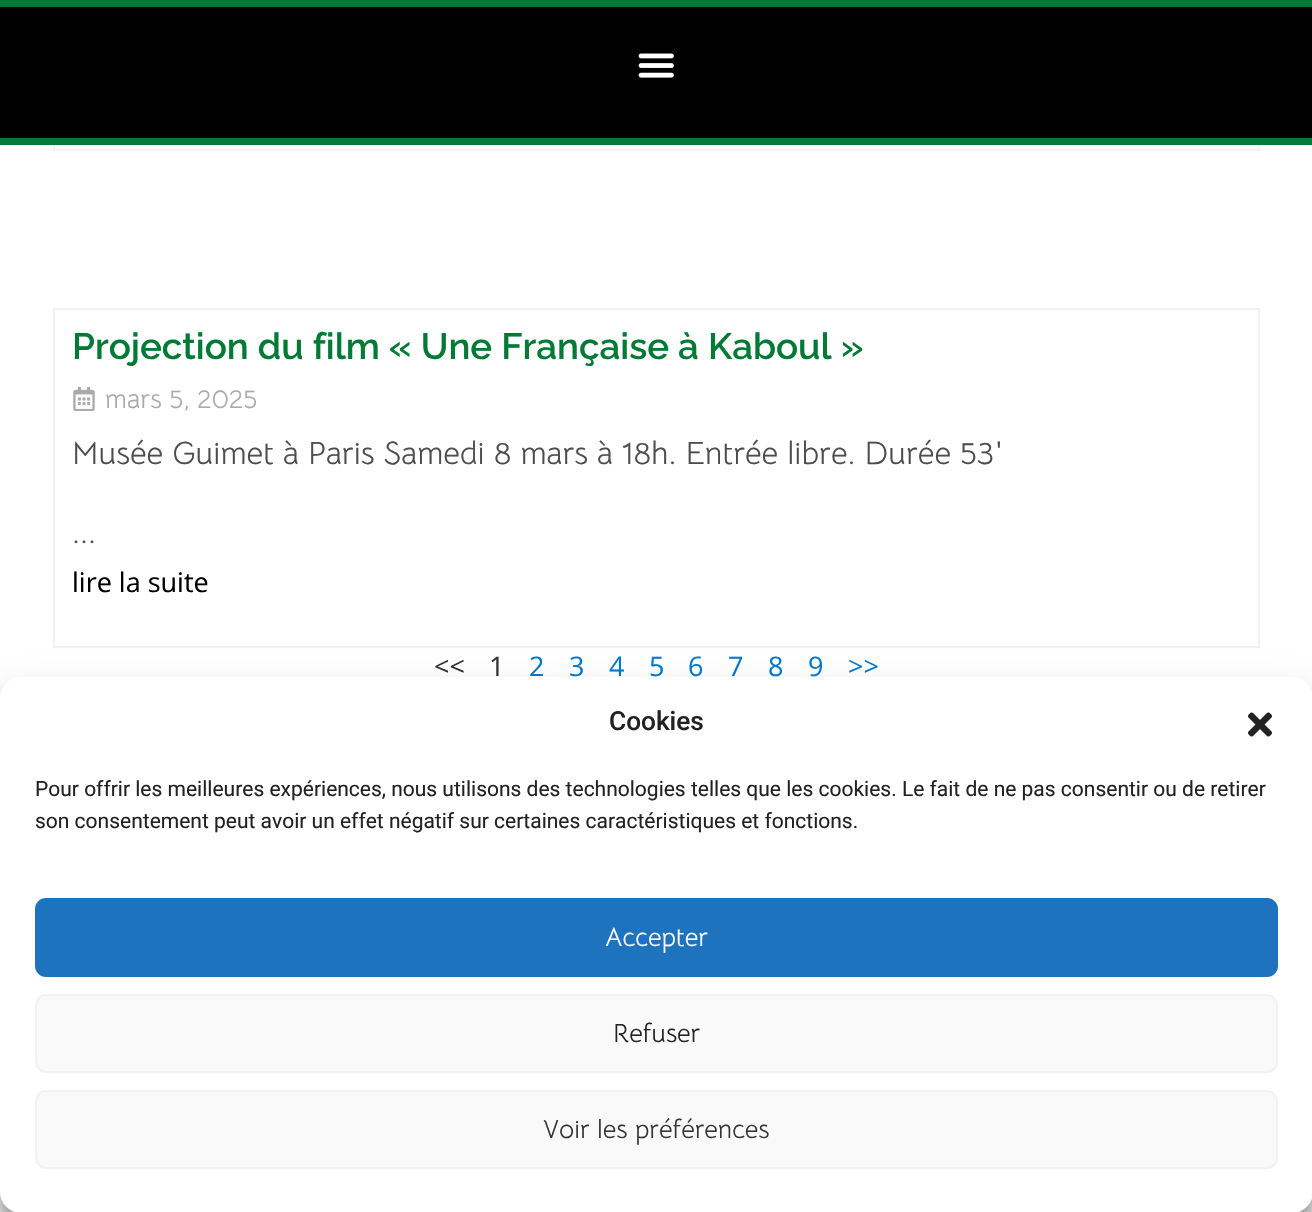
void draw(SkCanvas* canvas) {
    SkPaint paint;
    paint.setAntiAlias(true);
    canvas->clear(0xFFFFFFFF);
    paint.setStyle(SkPaint::kStroke_Style);
    paint.setStrokeWidth(2);
    paint.setColor(0xFFF1F1F1);
    canvas->drawRect(SkRect::MakeXYWH(54, -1, 1205, 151), paint);
    paint.setStyle(SkPaint::kFill_Style);
    paint.setColor(0xFF000000);
    canvas->drawRect(SkRect::MakeXYWH(0, 7, 1312, 131), paint);
    paint.setColor(0xFF007A34);
    canvas->drawRect(SkRect::MakeXYWH(0, 0, 1312, 7), paint);
    canvas->drawRect(SkRect::MakeXYWH(0, 138, 1312, 7), paint);
    canvas->drawImageRect(SkImages::DeferredFromEncodedData(SkData::MakeFromFileName("img1.png")), SkRect::MakeXYWH(638, 53, 36, 25), SkSamplingOptions());
    paint.setStyle(SkPaint::kStroke_Style);
    paint.setColor(0xFFF1F1F1);
    canvas->drawRect(SkRect::MakeXYWH(54, 309, 1205, 338), paint);
    SkFont font1(fontMgr->matchFamilyStyle("Raleway", SkFontStyle(600, SkFontStyle::kNormal_Width, SkFontStyle::kUpright_Slant)), 36.75f);
    font1.setSubpixel(true);
    paint.setStyle(SkPaint::kFill_Style);
    paint.setColor(0xFF007A34);
    canvas->drawString("Projection du film « Une Française à Kaboul »", 72, 359, font1, paint);
    canvas->drawImageRect(SkImages::DeferredFromEncodedData(SkData::MakeFromFileName("img2.png")), SkRect::MakeXYWH(73, 387, 22, 24), SkSamplingOptions());
    SkFont font2(fontMgr->matchFamilyStyle("Bellota Text", SkFontStyle::Normal()), 27);
    font2.setSubpixel(true);
    paint.setColor(0xFFAAAAAA);
    canvas->drawString("mars 5, 2025", 105, 408, font2, paint);
    SkFont font3(fontMgr->matchFamilyStyle("Bellota Text", SkFontStyle::Normal()), 32.25f);
    font3.setSubpixel(true);
    paint.setColor(0xFF4D4D4D);
    canvas->drawString("Musée Guimet à Paris Samedi 8 mars à 18h. Entrée libre. Durée 53′", 72, 464, font3, paint);
    canvas->drawString("...", 72, 543, font3, paint);
    SkFont font4(fontMgr->matchFamilyStyle("Open Sans", SkFontStyle::Normal()), 27);
    font4.setSubpixel(true);
    paint.setColor(0xFF000000);
    canvas->drawString("lire la suite", 72, 592, font4, paint);
    paint.setColor(0xFF353434);
    canvas->drawString("<<", 434, 676, font4, paint);
    canvas->drawString("1", 489, 676, font4, paint);
    paint.setColor(0xFF007ACC);
    canvas->drawString("2", 529, 676, font4, paint);
    canvas->drawString("3", 569, 676, font4, paint);
    canvas->drawString("4", 609, 676, font4, paint);
    canvas->drawString("5", 649, 676, font4, paint);
    canvas->drawString("6", 688, 676, font4, paint);
    canvas->drawString("7", 728, 676, font4, paint);
    canvas->drawString("8", 768, 676, font4, paint);
    canvas->drawString("9", 808, 676, font4, paint);
    canvas->drawString(">>", 848, 676, font4, paint);
    paint.setColor(0xFFF2F2F2);
    canvas->drawRect(SkRect::MakeXYWH(0, 1192, 1312, 20), paint);
    paint.setColor(0x3B000000);
    paint.setMaskFilter(SkMaskFilter::MakeBlur(kNormal_SkBlurStyle, 5));
    canvas->drawRoundRect(SkRect::MakeXYWH(0, 688, 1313, 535), 21, 21, paint);
    paint.setMaskFilter(nullptr);
    paint.setColor(0x30000000);
    paint.setMaskFilter(SkMaskFilter::MakeBlur(kNormal_SkBlurStyle, 17.5f));
    canvas->drawRoundRect(SkRect::MakeXYWH(0, 695, 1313, 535), 21, 21, paint);
    paint.setMaskFilter(nullptr);
    paint.setColor(0xFFFFFFFF);
    canvas->drawRoundRect(SkRect::MakeXYWH(0, 677, 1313, 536), 21, 21, paint);
    SkFont font5(fontMgr->matchFamilyStyle("Roboto", SkFontStyle(500, SkFontStyle::kNormal_Width, SkFontStyle::kUpright_Slant)), 26.25f);
    font5.setSubpixel(true);
    paint.setColor(0xFF222222);
    canvas->drawString("Cookies", 609, 730, font5, paint);
    canvas->drawImageRect(SkImages::DeferredFromEncodedData(SkData::MakeFromFileName("img3.png")), SkRect::MakeXYWH(1248, 712, 24, 25), SkSamplingOptions());
    SkFont font6(fontMgr->matchFamilyStyle("Roboto", SkFontStyle::Normal()), 21);
    font6.setSubpixel(true);
    canvas->drawString("Pour offrir les meilleures expériences, nous utilisons des technologies telles que les cookies. Le fait de ne pas consentir ou de retirer", 35, 796, font6, paint);
    canvas->drawString("son consentement peut avoir un effet négatif sur certaines caractéristiques et fonctions.", 35, 828, font6, paint);
    paint.setColor(0xFF1E73BE);
    canvas->drawRoundRect(SkRect::MakeXYWH(36, 899, 1241, 77), 10, 10, paint);
    paint.setStyle(SkPaint::kStroke_Style);
    canvas->drawRoundRect(SkRect::MakeXYWH(36, 899, 1241, 77), 10, 10, paint);
    SkFont font7(fontMgr->matchFamilyStyle("Bellota Text", SkFontStyle::Normal()), 26.25f);
    font7.setSubpixel(true);
    paint.setStyle(SkPaint::kFill_Style);
    paint.setColor(0xFFFFFFFF);
    canvas->drawString("Accepter", 605, 946, font7, paint);
    paint.setColor(0xFFF9F9F9);
    canvas->drawRoundRect(SkRect::MakeXYWH(36, 995, 1241, 77), 10, 10, paint);
    paint.setStyle(SkPaint::kStroke_Style);
    paint.setColor(0xFFF2F2F2);
    canvas->drawRoundRect(SkRect::MakeXYWH(36, 995, 1241, 77), 10, 10, paint);
    paint.setStyle(SkPaint::kFill_Style);
    paint.setColor(0xFF222222);
    canvas->drawString("Refuser", 613, 1042, font7, paint);
    paint.setColor(0xFFF9F9F9);
    canvas->drawRoundRect(SkRect::MakeXYWH(36, 1091, 1241, 77), 10, 10, paint);
    paint.setStyle(SkPaint::kStroke_Style);
    paint.setColor(0xFFF2F2F2);
    canvas->drawRoundRect(SkRect::MakeXYWH(36, 1091, 1241, 77), 10, 10, paint);
    paint.setStyle(SkPaint::kFill_Style);
    paint.setColor(0xFF353434);
    canvas->drawString("Voir les préférences", 543, 1138, font7, paint);
}
